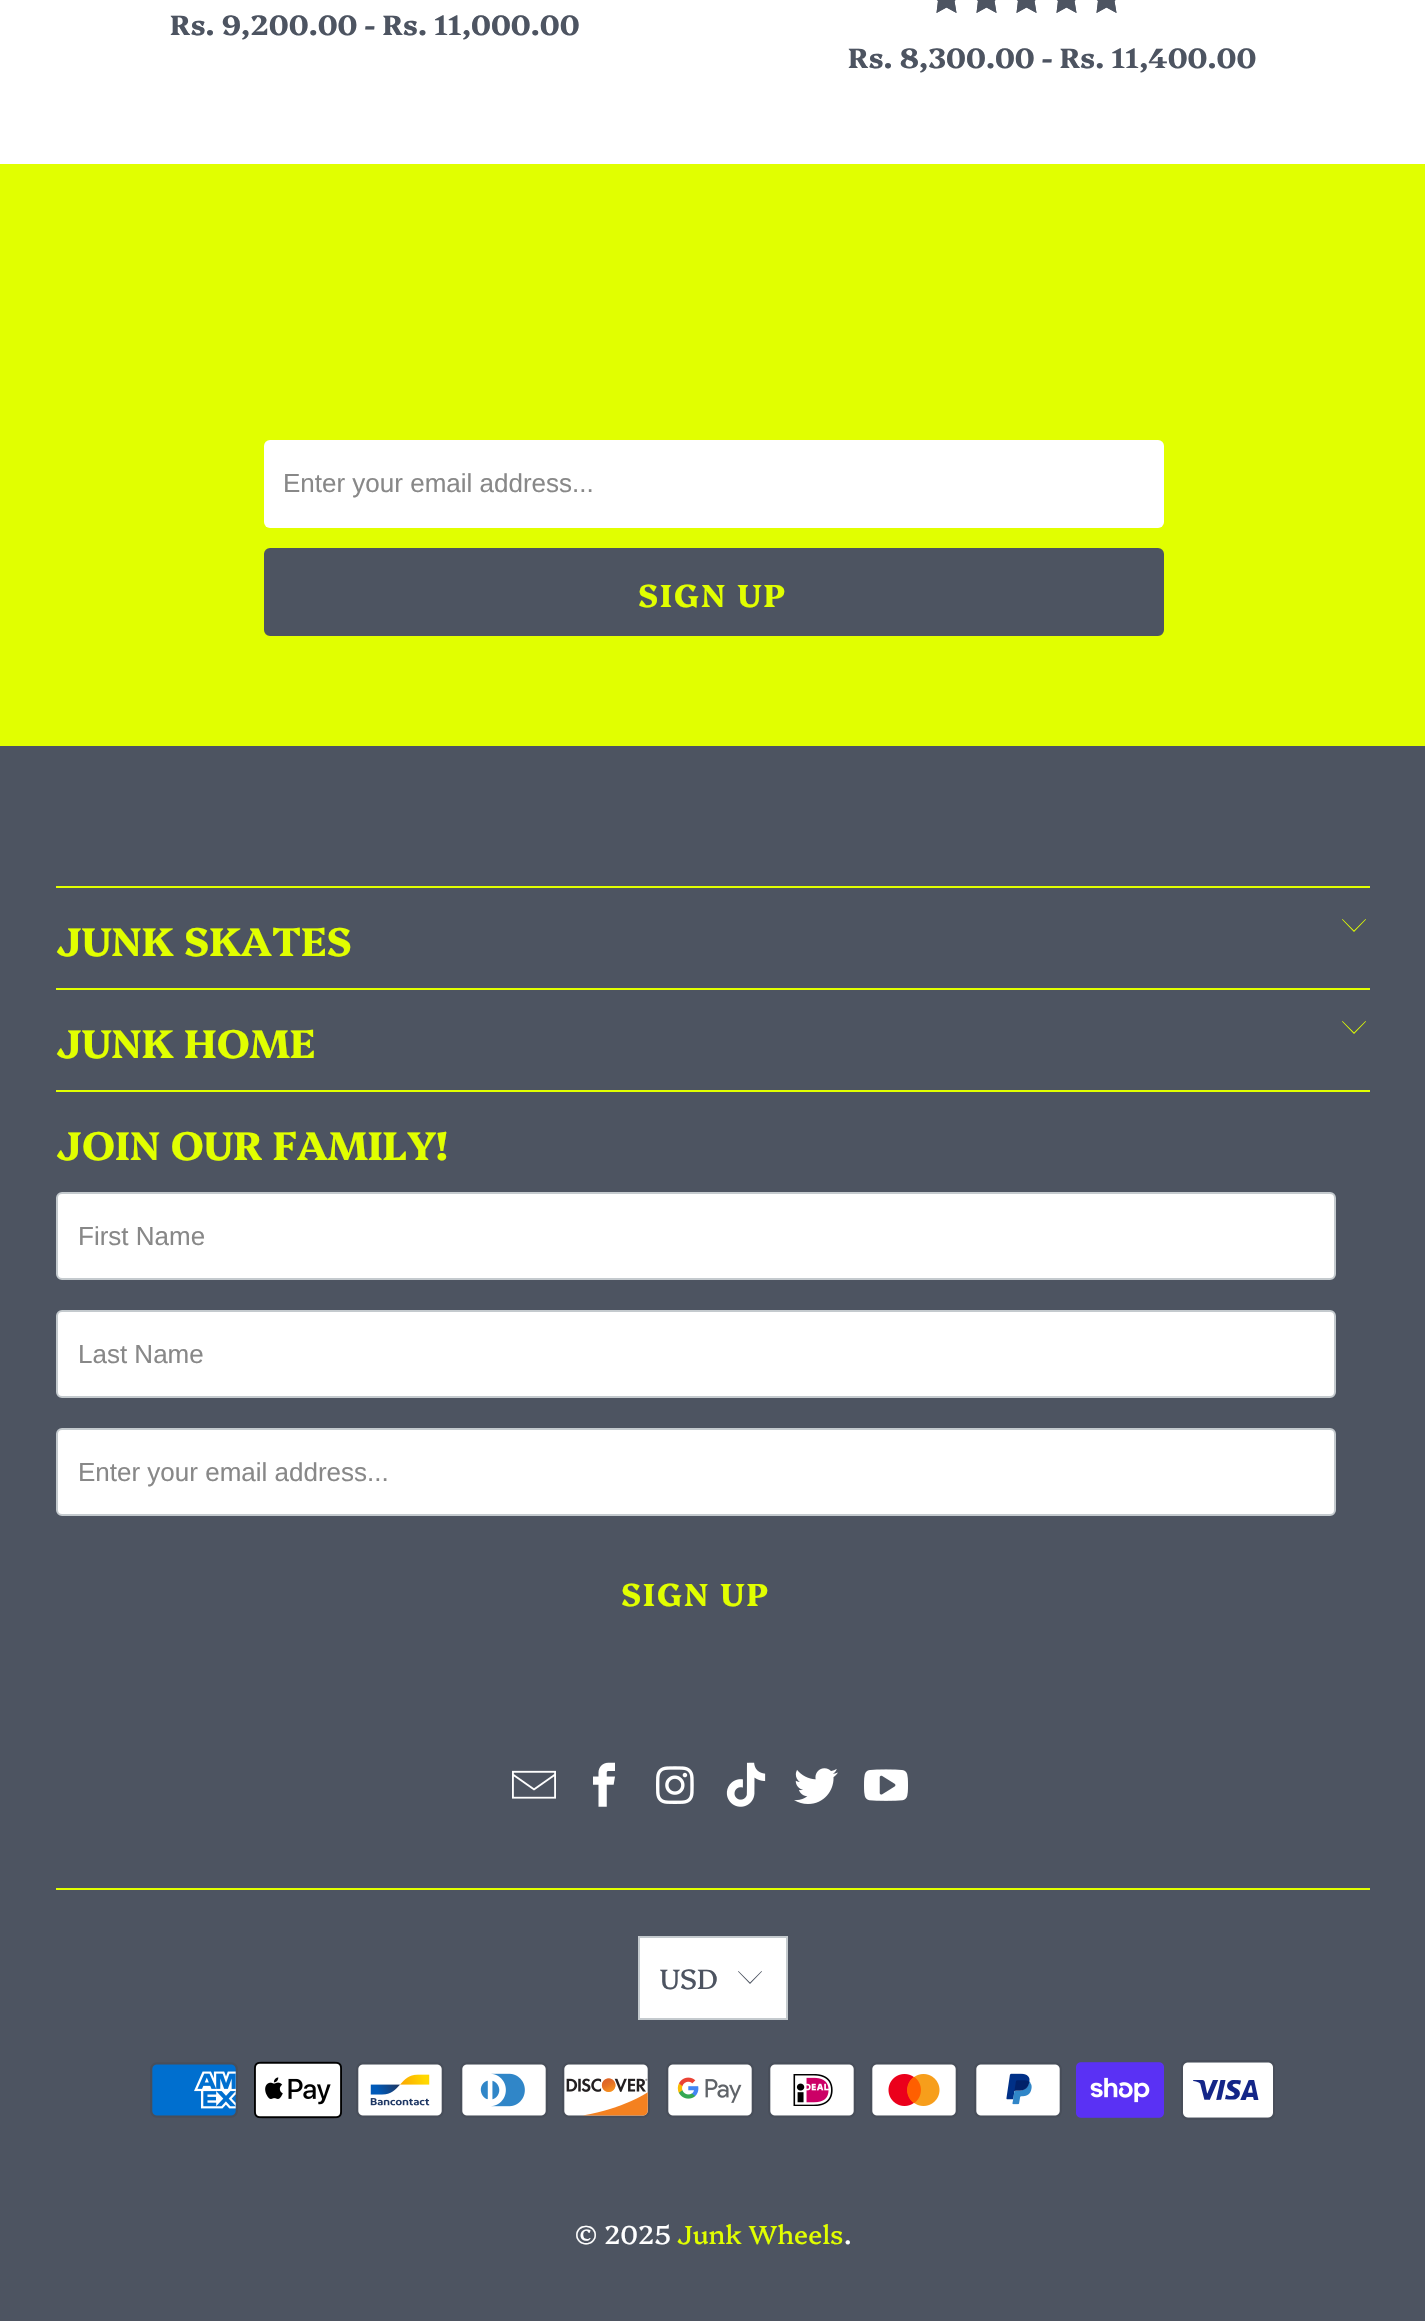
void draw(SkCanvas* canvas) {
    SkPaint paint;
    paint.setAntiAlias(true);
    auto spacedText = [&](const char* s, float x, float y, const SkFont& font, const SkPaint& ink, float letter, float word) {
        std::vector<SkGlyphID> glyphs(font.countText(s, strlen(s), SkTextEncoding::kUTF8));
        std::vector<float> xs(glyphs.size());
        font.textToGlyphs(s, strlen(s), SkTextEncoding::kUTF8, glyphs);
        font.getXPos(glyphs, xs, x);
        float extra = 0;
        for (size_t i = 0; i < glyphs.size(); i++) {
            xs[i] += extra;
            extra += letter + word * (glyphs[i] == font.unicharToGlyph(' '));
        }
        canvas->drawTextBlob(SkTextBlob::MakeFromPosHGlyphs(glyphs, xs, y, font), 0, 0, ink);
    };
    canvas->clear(0xFFFFFFFF);
    SkFont font1(fontMgr->matchFamilyStyle("Platypi", SkFontStyle::Bold()), 28);
    font1.setSubpixel(true);
    paint.setColor(0xFF4D5461);
    canvas->drawString("Rs. 9,200.00 - Rs. 11,000.00", 170, 35, font1, paint);
    canvas->drawPath(SkPathBuilder().moveTo(946.5f, -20).lineTo(941.5f, -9).lineTo(930, -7.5f).lineTo(938, 1).lineTo(936.5f, 13).lineTo(946.5f, 7.5f).lineTo(956.5f, 13).lineTo(954.5f, 1).lineTo(963, -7.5f).lineTo(951.5f, -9).close().detach(), paint);
    canvas->save();
    canvas->clipPath(SkPathBuilder().moveTo(946.5f, -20).lineTo(951.5f, -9).lineTo(963, -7.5f).lineTo(954.5f, 1).lineTo(956.5f, 13).lineTo(946.5f, 7.5f).lineTo(936.5f, 13).lineTo(938, 1).lineTo(930, -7.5f).lineTo(941.5f, -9).close().detach(), true);
    paint.setStyle(SkPaint::kStroke_Style);
    paint.setStrokeWidth(4.7f);
    paint.setStrokeCap(SkPaint::kRound_Cap);
    paint.setStrokeJoin(SkPaint::kRound_Join);
    canvas->drawPath(SkPathBuilder().moveTo(946.5f, -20).lineTo(951.5f, -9).lineTo(963, -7.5f).lineTo(954.5f, 1).lineTo(956.5f, 13).lineTo(946.5f, 7.5f).lineTo(936.5f, 13).lineTo(938, 1).lineTo(930, -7.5f).lineTo(941.5f, -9).close().detach(), paint);
    canvas->restore();
    paint.setStyle(SkPaint::kFill_Style);
    canvas->drawPath(SkPathBuilder().moveTo(986.5f, -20).lineTo(981.5f, -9).lineTo(970, -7.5f).lineTo(978, 1).lineTo(976.5f, 13).lineTo(986.5f, 7.5f).lineTo(996.5f, 13).lineTo(994.5f, 1).lineTo(1003, -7.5f).lineTo(991.5f, -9).close().detach(), paint);
    canvas->save();
    canvas->clipPath(SkPathBuilder().moveTo(986.5f, -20).lineTo(991.5f, -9).lineTo(1003, -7.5f).lineTo(994.5f, 1).lineTo(996.5f, 13).lineTo(986.5f, 7.5f).lineTo(976.5f, 13).lineTo(978, 1).lineTo(970, -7.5f).lineTo(981.5f, -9).close().detach(), true);
    paint.setStyle(SkPaint::kStroke_Style);
    canvas->drawPath(SkPathBuilder().moveTo(986.5f, -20).lineTo(991.5f, -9).lineTo(1003, -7.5f).lineTo(994.5f, 1).lineTo(996.5f, 13).lineTo(986.5f, 7.5f).lineTo(976.5f, 13).lineTo(978, 1).lineTo(970, -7.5f).lineTo(981.5f, -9).close().detach(), paint);
    canvas->restore();
    paint.setStyle(SkPaint::kFill_Style);
    canvas->drawPath(SkPathBuilder().moveTo(1026.5f, -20).lineTo(1021.5f, -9).lineTo(1010, -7.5f).lineTo(1018, 1).lineTo(1016.5f, 13).lineTo(1026.5f, 7.5f).lineTo(1036.5f, 13).lineTo(1034.5f, 1).lineTo(1043, -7.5f).lineTo(1031.5f, -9).close().detach(), paint);
    canvas->save();
    canvas->clipPath(SkPathBuilder().moveTo(1026.5f, -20).lineTo(1031.5f, -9).lineTo(1043, -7.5f).lineTo(1034.5f, 1).lineTo(1036.5f, 13).lineTo(1026.5f, 7.5f).lineTo(1016.5f, 13).lineTo(1018, 1).lineTo(1010, -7.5f).lineTo(1021.5f, -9).close().detach(), true);
    paint.setStyle(SkPaint::kStroke_Style);
    canvas->drawPath(SkPathBuilder().moveTo(1026.5f, -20).lineTo(1031.5f, -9).lineTo(1043, -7.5f).lineTo(1034.5f, 1).lineTo(1036.5f, 13).lineTo(1026.5f, 7.5f).lineTo(1016.5f, 13).lineTo(1018, 1).lineTo(1010, -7.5f).lineTo(1021.5f, -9).close().detach(), paint);
    canvas->restore();
    paint.setStyle(SkPaint::kFill_Style);
    canvas->drawPath(SkPathBuilder().moveTo(1066.5f, -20).lineTo(1061.5f, -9).lineTo(1050, -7.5f).lineTo(1058, 1).lineTo(1056.5f, 13).lineTo(1066.5f, 7.5f).lineTo(1076.5f, 13).lineTo(1074.5f, 1).lineTo(1083, -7.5f).lineTo(1071.5f, -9).close().detach(), paint);
    canvas->save();
    canvas->clipPath(SkPathBuilder().moveTo(1066.5f, -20).lineTo(1071.5f, -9).lineTo(1083, -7.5f).lineTo(1074.5f, 1).lineTo(1076.5f, 13).lineTo(1066.5f, 7.5f).lineTo(1056.5f, 13).lineTo(1058, 1).lineTo(1050, -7.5f).lineTo(1061.5f, -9).close().detach(), true);
    paint.setStyle(SkPaint::kStroke_Style);
    canvas->drawPath(SkPathBuilder().moveTo(1066.5f, -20).lineTo(1071.5f, -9).lineTo(1083, -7.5f).lineTo(1074.5f, 1).lineTo(1076.5f, 13).lineTo(1066.5f, 7.5f).lineTo(1056.5f, 13).lineTo(1058, 1).lineTo(1050, -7.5f).lineTo(1061.5f, -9).close().detach(), paint);
    canvas->restore();
    paint.setStyle(SkPaint::kFill_Style);
    canvas->drawPath(SkPathBuilder().moveTo(1106.5f, -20).lineTo(1101.5f, -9).lineTo(1090, -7.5f).lineTo(1098, 1).lineTo(1096.5f, 13).lineTo(1106.5f, 7.5f).lineTo(1116.5f, 13).lineTo(1114.5f, 1).lineTo(1123, -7.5f).lineTo(1111.5f, -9).close().detach(), paint);
    canvas->save();
    canvas->clipPath(SkPathBuilder().moveTo(1106.5f, -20).lineTo(1111.5f, -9).lineTo(1123, -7.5f).lineTo(1114.5f, 1).lineTo(1116.5f, 13).lineTo(1106.5f, 7.5f).lineTo(1096.5f, 13).lineTo(1098, 1).lineTo(1090, -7.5f).lineTo(1101.5f, -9).close().detach(), true);
    paint.setStyle(SkPaint::kStroke_Style);
    canvas->drawPath(SkPathBuilder().moveTo(1106.5f, -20).lineTo(1111.5f, -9).lineTo(1123, -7.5f).lineTo(1114.5f, 1).lineTo(1116.5f, 13).lineTo(1106.5f, 7.5f).lineTo(1096.5f, 13).lineTo(1098, 1).lineTo(1090, -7.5f).lineTo(1101.5f, -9).close().detach(), paint);
    canvas->restore();
    paint.setStyle(SkPaint::kFill_Style);
    canvas->drawString("Rs. 8,300.00 - Rs. 11,400.00", 848, 68, font1, paint);
    paint.setColor(0xFFE1FF00);
    canvas->drawRect(SkRect::MakeXYWH(0, 164, 1425, 582), paint);
    paint.setColor(0xFFFFFFFF);
    canvas->drawRoundRect(SkRect::MakeXYWH(264, 440, 900, 88), 6, 6, paint);
    SkFont font2(fontMgr->matchFamilyStyle("Liberation Sans", SkFontStyle::Normal()), 26);
    font2.setSubpixel(true);
    paint.setColor(0xFF888888);
    canvas->drawString("Enter your email address...", 283, 492, font2, paint);
    paint.setColor(0xFF4D5461);
    canvas->drawRoundRect(SkRect::MakeXYWH(265, 549, 898, 86), 5, 5, paint);
    paint.setStyle(SkPaint::kStroke_Style);
    paint.setStrokeWidth(2);
    paint.setStrokeCap(SkPaint::kButt_Cap);
    paint.setStrokeJoin(SkPaint::kMiter_Join);
    canvas->drawRoundRect(SkRect::MakeXYWH(265, 549, 898, 86), 5, 5, paint);
    SkFont font3(fontMgr->matchFamilyStyle("Platypi", SkFontStyle::Bold()), 32);
    font3.setSubpixel(true);
    paint.setStyle(SkPaint::kFill_Style);
    paint.setColor(0xFFE1FF00);
    spacedText("SIGN UP", 638, 607, font3, paint, 2, 0);
    paint.setColor(0xFF4D5461);
    canvas->drawRect(SkRect::MakeXYWH(0, 746, 1425, 1575), paint);
    paint.setColor(0xFFE1FF00);
    canvas->drawRect(SkRect::MakeXYWH(56, 886, 1314, 2), paint);
    canvas->drawPath(SkPathBuilder().moveTo(1354, 932).lineTo(1342, 919.5f).lineTo(1342.5f, 919).lineTo(1354, 930.5f).lineTo(1365.5f, 919).lineTo(1366, 919.5f).close().detach(), paint);
    SkFont font4(fontMgr->matchFamilyStyle("Platypi", SkFontStyle::Bold()), 40);
    font4.setSubpixel(true);
    canvas->drawString("JUNK SKATES", 56, 956, font4, paint);
    canvas->drawRect(SkRect::MakeXYWH(56, 988, 1314, 2), paint);
    canvas->drawPath(SkPathBuilder().moveTo(1354, 1034).lineTo(1342, 1021.5f).lineTo(1342.5f, 1021).lineTo(1354, 1032.5f).lineTo(1365.5f, 1021).lineTo(1366, 1021.5f).close().detach(), paint);
    canvas->drawString("JUNK HOME", 56, 1058, font4, paint);
    canvas->drawRect(SkRect::MakeXYWH(56, 1090, 1314, 2), paint);
    canvas->drawString("JOIN OUR FAMILY!", 56, 1160, font4, paint);
    paint.setColor(0xFFFFFFFF);
    canvas->drawRoundRect(SkRect::MakeXYWH(57, 1193, 1278, 86), 5, 5, paint);
    paint.setStyle(SkPaint::kStroke_Style);
    paint.setColor(0xFFC4CACE);
    canvas->drawRoundRect(SkRect::MakeXYWH(57, 1193, 1278, 86), 5, 5, paint);
    paint.setStyle(SkPaint::kFill_Style);
    paint.setColor(0xFF888888);
    canvas->drawString("First Name", 78, 1245, font2, paint);
    paint.setColor(0xFFFFFFFF);
    canvas->drawRoundRect(SkRect::MakeXYWH(57, 1311, 1278, 86), 5, 5, paint);
    paint.setStyle(SkPaint::kStroke_Style);
    paint.setColor(0xFFC4CACE);
    canvas->drawRoundRect(SkRect::MakeXYWH(57, 1311, 1278, 86), 5, 5, paint);
    paint.setStyle(SkPaint::kFill_Style);
    paint.setColor(0xFF888888);
    canvas->drawString("Last Name", 78, 1363, font2, paint);
    paint.setColor(0xFFFFFFFF);
    canvas->drawRoundRect(SkRect::MakeXYWH(57, 1429, 1278, 86), 5, 5, paint);
    paint.setStyle(SkPaint::kStroke_Style);
    paint.setColor(0xFFC4CACE);
    canvas->drawRoundRect(SkRect::MakeXYWH(57, 1429, 1278, 86), 5, 5, paint);
    paint.setStyle(SkPaint::kFill_Style);
    paint.setColor(0xFF888888);
    canvas->drawString("Enter your email address...", 78, 1481, font2, paint);
    paint.setColor(0xFFE1FF00);
    spacedText("SIGN UP", 621, 1606, font3, paint, 2, 0);
    canvas->drawImageRect(SkImages::DeferredFromEncodedData(SkData::MakeFromFileName("img1.png")), SkRect::MakeXYWH(512, 1770, 44, 29), SkSamplingOptions());
    canvas->drawImageRect(SkImages::DeferredFromEncodedData(SkData::MakeFromFileName("img2.png")), SkRect::MakeXYWH(593, 1762, 22, 45), SkSamplingOptions());
    canvas->drawImageRect(SkImages::DeferredFromEncodedData(SkData::MakeFromFileName("img3.png")), SkRect::MakeXYWH(656, 1766, 38, 38), SkSamplingOptions());
    canvas->drawImageRect(SkImages::DeferredFromEncodedData(SkData::MakeFromFileName("img4.png")), SkRect::MakeXYWH(726, 1762, 40, 45), SkSamplingOptions());
    canvas->drawImageRect(SkImages::DeferredFromEncodedData(SkData::MakeFromFileName("img5.png")), SkRect::MakeXYWH(794, 1768, 44, 36), SkSamplingOptions());
    canvas->drawImageRect(SkImages::DeferredFromEncodedData(SkData::MakeFromFileName("img6.png")), SkRect::MakeXYWH(864, 1769, 44, 32), SkSamplingOptions());
    canvas->drawRect(SkRect::MakeXYWH(56, 1888, 1314, 2), paint);
    paint.setColor(0xFFFFFFFF);
    canvas->drawRect(SkRect::MakeXYWH(639, 1937, 148, 82), paint);
    paint.setStyle(SkPaint::kStroke_Style);
    paint.setColor(0xFFC4CACE);
    canvas->drawRect(SkRect::MakeXYWH(639, 1937, 148, 82), paint);
    SkFont font5(fontMgr->matchFamilyStyle("Platypi", SkFontStyle::Normal()), 28);
    font5.setSubpixel(true);
    paint.setStyle(SkPaint::kFill_Style);
    paint.setColor(0xFF4D5461);
    canvas->drawString("USD", 660, 1989, font5, paint);
    canvas->drawPath(SkPathBuilder().moveTo(750, 1984).lineTo(738, 1971.5f).lineTo(738.5f, 1971).lineTo(750, 1982.5f).lineTo(761.5f, 1971).lineTo(762, 1971.5f).close().detach(), paint);
    canvas->drawImageRect(SkImages::DeferredFromEncodedData(SkData::MakeFromFileName("img7.png")), SkRect::MakeXYWH(150, 2062, 88, 56), SkSamplingOptions());
    canvas->drawImageRect(SkImages::DeferredFromEncodedData(SkData::MakeFromFileName("img8.png")), SkRect::MakeXYWH(254, 2061, 88, 58), SkSamplingOptions());
    canvas->drawImageRect(SkImages::DeferredFromEncodedData(SkData::MakeFromFileName("img9.png")), SkRect::MakeXYWH(356, 2062, 88, 56), SkSamplingOptions());
    canvas->drawImageRect(SkImages::DeferredFromEncodedData(SkData::MakeFromFileName("img10.png")), SkRect::MakeXYWH(460, 2062, 88, 56), SkSamplingOptions());
    canvas->drawImageRect(SkImages::DeferredFromEncodedData(SkData::MakeFromFileName("img11.png")), SkRect::MakeXYWH(562, 2062, 88, 56), SkSamplingOptions());
    canvas->drawImageRect(SkImages::DeferredFromEncodedData(SkData::MakeFromFileName("img12.png")), SkRect::MakeXYWH(666, 2062, 88, 56), SkSamplingOptions());
    canvas->drawImageRect(SkImages::DeferredFromEncodedData(SkData::MakeFromFileName("img13.png")), SkRect::MakeXYWH(768, 2062, 88, 56), SkSamplingOptions());
    canvas->drawImageRect(SkImages::DeferredFromEncodedData(SkData::MakeFromFileName("img14.png")), SkRect::MakeXYWH(870, 2062, 88, 56), SkSamplingOptions());
    canvas->drawImageRect(SkImages::DeferredFromEncodedData(SkData::MakeFromFileName("img15.png")), SkRect::MakeXYWH(974, 2062, 88, 56), SkSamplingOptions());
    canvas->drawImageRect(SkImages::DeferredFromEncodedData(SkData::MakeFromFileName("img16.png")), SkRect::MakeXYWH(1076, 2062, 88, 56), SkSamplingOptions());
    canvas->drawImageRect(SkImages::DeferredFromEncodedData(SkData::MakeFromFileName("img17.png")), SkRect::MakeXYWH(1181, 2060, 94, 60), SkSamplingOptions());
    SkFont font6(fontMgr->matchFamilyStyle("Platypi", SkFontStyle::Normal()), 26);
    font6.setSubpixel(true);
    paint.setColor(0xFFFFFFFF);
    canvas->drawString("© 2025", 575, 2244, font6, paint);
    paint.setColor(0xFFE1FF00);
    canvas->drawString("Junk Wheels", 677, 2244, font6, paint);
    paint.setColor(0xFFFFFFFF);
    canvas->drawString(".", 844, 2244, font6, paint);
}
